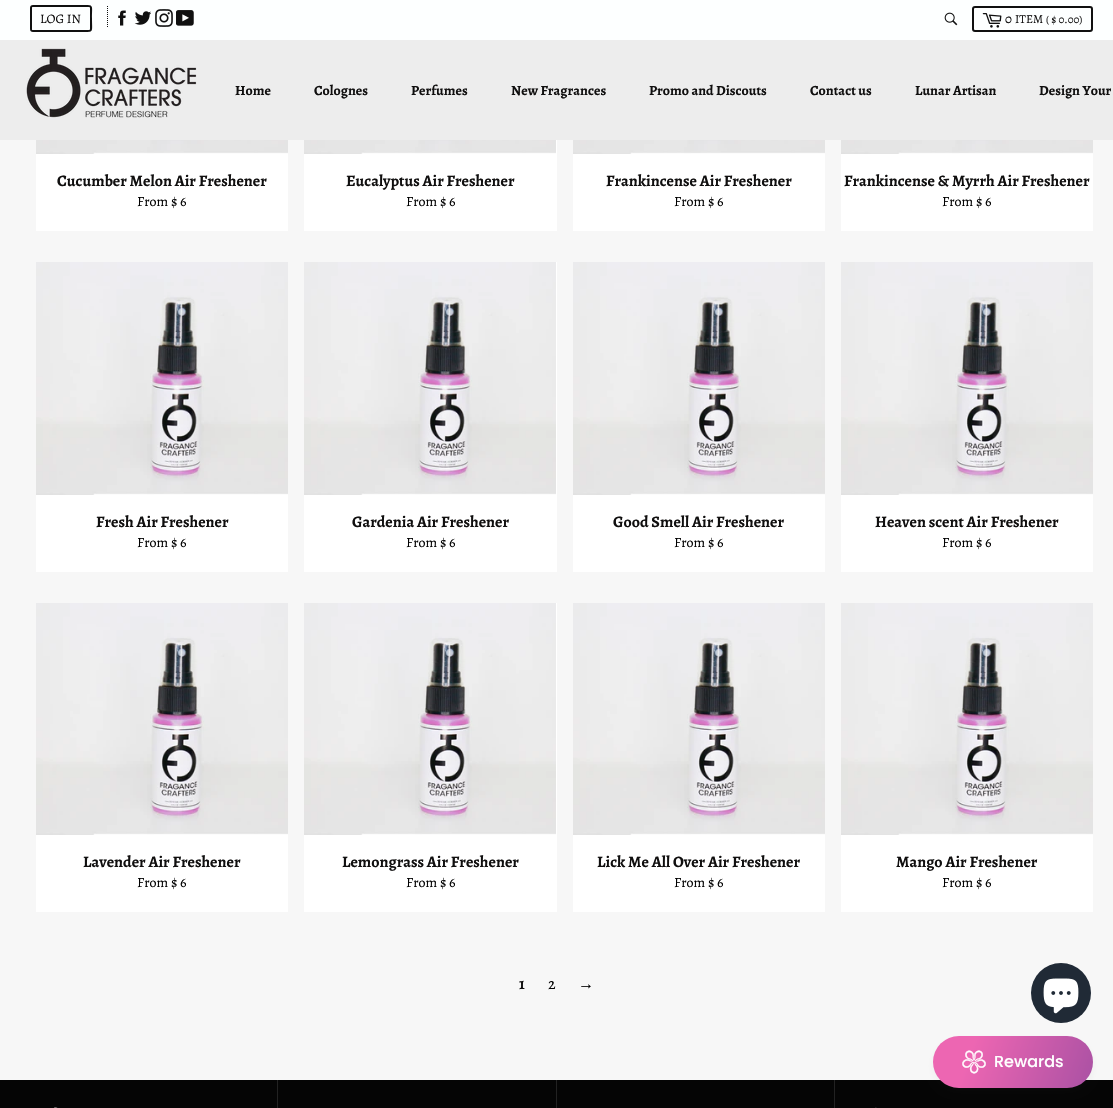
void draw(SkCanvas* canvas) {
    SkPaint paint;
    paint.setAntiAlias(true);
    canvas->clear(0xFFF7F7F7);
    paint.setColor(0xFFEDEDED);
    canvas->drawRect(SkRect::MakeXYWH(0, 40, 1113, 100), paint);
    paint.setColor(0xFFFDFFFF);
    canvas->drawRect(SkRect::MakeXYWH(0, 0, 1113, 40), paint);
    paint.setColor(0xFF101010);
    canvas->drawPath(SkPathBuilder(SkPathFillType::kEvenOdd).moveTo(33, 5).lineTo(81, 5).lineTo(81, 32).lineTo(33, 32).cubicTo(31, 32, 30, 31, 30, 29).lineTo(30, 8).cubicTo(30, 6, 31, 5, 33, 5).close().moveTo(33, 7).lineTo(81, 7).lineTo(81, 30).lineTo(33, 30).cubicTo(32, 30, 32, 30, 32, 29).lineTo(32, 8).cubicTo(32, 7, 32, 7, 33, 7).close().moveTo(81, 5).cubicTo(94.5f, 5, 92, 4, 92, 18.5f).cubicTo(92, 33, 94.5f, 32, 81, 32).close().moveTo(81, 7).lineTo(89, 7).cubicTo(89.5f, 7, 90, 7.5f, 90, 8).lineTo(90, 29).cubicTo(90, 29.5f, 89.5f, 30, 89, 30).lineTo(81, 30).close().detach(), paint);
    SkFont font1(fontMgr->matchFamilyStyle("Alegreya", SkFontStyle::Normal()), 13);
    font1.setSubpixel(true);
    paint.setColor(0xFF100F0F);
    canvas->drawString("LOG IN", 40, 23, font1, paint);
    paint.setStyle(SkPaint::kStroke_Style);
    paint.setStrokeWidth(1);
    paint.setColor(0xFF101010);
    paint.setPathEffect(SkDashPathEffect::Make({{1, 1}}, 0));
    canvas->drawPath(SkPathBuilder().moveTo(107.5f, 6).lineTo(107.5f, 28).detach(), paint);
    paint.setPathEffect(nullptr);
    canvas->drawImageRect(SkImages::DeferredFromEncodedData(SkData::MakeFromFileName("img1.png")), SkRect::MakeXYWH(118, 10, 8, 16), SkSamplingOptions());
    canvas->drawImageRect(SkImages::DeferredFromEncodedData(SkData::MakeFromFileName("img2.png")), SkRect::MakeXYWH(134, 11, 17, 14), SkSamplingOptions());
    canvas->drawImageRect(SkImages::DeferredFromEncodedData(SkData::MakeFromFileName("img3.png")), SkRect::MakeXYWH(155, 9, 18, 18), SkSamplingOptions());
    canvas->drawImageRect(SkImages::DeferredFromEncodedData(SkData::MakeFromFileName("img4.png")), SkRect::MakeXYWH(176, 10, 18, 16), SkSamplingOptions());
    canvas->drawImageRect(SkImages::DeferredFromEncodedData(SkData::MakeFromFileName("img5.png")), SkRect::MakeXYWH(944, 12, 14, 14), SkSamplingOptions());
    paint.setStrokeWidth(2);
    canvas->drawRoundRect(SkRect::MakeXYWH(973, 7, 119, 24), 2, 2, paint);
    canvas->drawImageRect(SkImages::DeferredFromEncodedData(SkData::MakeFromFileName("img6.png")), SkRect::MakeXYWH(982, 13, 20, 15), SkSamplingOptions());
    paint.setStyle(SkPaint::kFill_Style);
    paint.setColor(0xFF100F0F);
    canvas->drawString("0", 1005, 23, font1, paint);
    SkFont font2(fontMgr->matchFamilyStyle("Alegreya", SkFontStyle::Normal()), 12);
    font2.setSubpixel(true);
    canvas->drawString("ITEM", 1015, 23, font2, paint);
    SkFont font3(fontMgr->matchFamilyStyle("Alegreya", SkFontStyle::Normal()), 11);
    font3.setSubpixel(true);
    canvas->drawString("( $ 0.00)", 1046, 23, font3, paint);
    canvas->drawImageRect(SkImages::DeferredFromEncodedData(SkData::MakeFromFileName("img7.png")), SkRect::MakeXYWH(26, 48, 171, 70), SkSamplingOptions());
    SkFont font4(fontMgr->matchFamilyStyle("Alegreya", SkFontStyle::Bold()), 14);
    font4.setSubpixel(true);
    canvas->drawString("Home", 235, 95, font4, paint);
    canvas->drawString("Colognes", 314, 95, font4, paint);
    canvas->drawString("Perfumes", 411, 95, font4, paint);
    canvas->drawString("New Fragrances", 511, 95, font4, paint);
    canvas->drawString("Promo and Discouts", 649, 95, font4, paint);
    canvas->drawString("Contact us", 810, 95, font4, paint);
    canvas->drawString("Lunar Artisan", 915, 95, font4, paint);
    canvas->drawString("Design Your", 1039, 95, font4, paint);
    paint.setColor(0xFFFFFFFF);
    canvas->drawRect(SkRect::MakeXYWH(36, 154, 252, 77), paint);
    canvas->drawImageRect(SkImages::DeferredFromEncodedData(SkData::MakeFromFileName("img8.png")), SkRect::MakeXYWH(36, 140, 252, 14), SkSamplingOptions());
    SkFont font5(fontMgr->matchFamilyStyle("Alegreya", SkFontStyle::Bold()), 16);
    font5.setSubpixel(true);
    paint.setColor(0xFF100F0F);
    canvas->drawString("Cucumber Melon Air Freshener", 57, 186, font5, paint);
    SkFont font6(fontMgr->matchFamilyStyle("Alegreya", SkFontStyle::Normal()), 14);
    font6.setSubpixel(true);
    paint.setColor(0xFF000000);
    canvas->drawString("From $ 6", 137, 206, font6, paint);
    paint.setColor(0xFFFFFFFF);
    canvas->drawRect(SkRect::MakeXYWH(304, 140, 253, 91), paint);
    canvas->drawImageRect(SkImages::DeferredFromEncodedData(SkData::MakeFromFileName("img8.png")), SkRect::MakeXYWH(304, 140, 252, 14), SkSamplingOptions());
    paint.setColor(0xFF100F0F);
    canvas->drawString("Eucalyptus Air Freshener", 346, 186, font5, paint);
    paint.setColor(0xFF000000);
    canvas->drawString("From $ 6", 406, 206, font6, paint);
    paint.setColor(0xFFFFFFFF);
    canvas->drawRect(SkRect::MakeXYWH(573, 154, 252, 77), paint);
    canvas->drawImageRect(SkImages::DeferredFromEncodedData(SkData::MakeFromFileName("img8.png")), SkRect::MakeXYWH(573, 140, 252, 14), SkSamplingOptions());
    paint.setColor(0xFF100F0F);
    canvas->drawString("Frankincense Air Freshener", 606, 186, font5, paint);
    paint.setColor(0xFF000000);
    canvas->drawString("From $ 6", 674, 206, font6, paint);
    paint.setColor(0xFFFFFFFF);
    canvas->drawRect(SkRect::MakeXYWH(841, 154, 252, 77), paint);
    canvas->drawImageRect(SkImages::DeferredFromEncodedData(SkData::MakeFromFileName("img8.png")), SkRect::MakeXYWH(841, 140, 252, 14), SkSamplingOptions());
    paint.setColor(0xFF100F0F);
    canvas->drawString("Frankincense & Myrrh Air Freshener", 844, 186, font5, paint);
    paint.setColor(0xFF000000);
    canvas->drawString("From $ 6", 942, 206, font6, paint);
    paint.setColor(0xFFFFFFFF);
    canvas->drawRect(SkRect::MakeXYWH(36, 495, 252, 77), paint);
    canvas->drawImageRect(SkImages::DeferredFromEncodedData(SkData::MakeFromFileName("img9.png")), SkRect::MakeXYWH(36, 262, 252, 233), SkSamplingOptions());
    paint.setColor(0xFF100F0F);
    canvas->drawString("Fresh Air Freshener", 96, 527, font5, paint);
    paint.setColor(0xFF000000);
    canvas->drawString("From $ 6", 137, 547, font6, paint);
    paint.setColor(0xFFFFFFFF);
    canvas->drawRect(SkRect::MakeXYWH(304, 262, 253, 310), paint);
    canvas->drawImageRect(SkImages::DeferredFromEncodedData(SkData::MakeFromFileName("img10.png")), SkRect::MakeXYWH(304, 262, 252, 233), SkSamplingOptions());
    paint.setColor(0xFF100F0F);
    canvas->drawString("Gardenia Air Freshener", 352, 527, font5, paint);
    paint.setColor(0xFF000000);
    canvas->drawString("From $ 6", 406, 547, font6, paint);
    paint.setColor(0xFFFFFFFF);
    canvas->drawRect(SkRect::MakeXYWH(573, 495, 252, 77), paint);
    canvas->drawImageRect(SkImages::DeferredFromEncodedData(SkData::MakeFromFileName("img10.png")), SkRect::MakeXYWH(573, 262, 252, 233), SkSamplingOptions());
    paint.setColor(0xFF100F0F);
    canvas->drawString("Good Smell Air Freshener", 613, 527, font5, paint);
    paint.setColor(0xFF000000);
    canvas->drawString("From $ 6", 674, 547, font6, paint);
    paint.setColor(0xFFFFFFFF);
    canvas->drawRect(SkRect::MakeXYWH(841, 495, 252, 77), paint);
    canvas->drawImageRect(SkImages::DeferredFromEncodedData(SkData::MakeFromFileName("img11.png")), SkRect::MakeXYWH(841, 262, 252, 233), SkSamplingOptions());
    paint.setColor(0xFF100F0F);
    canvas->drawString("Heaven scent Air Freshener", 875, 527, font5, paint);
    paint.setColor(0xFF000000);
    canvas->drawString("From $ 6", 942, 547, font6, paint);
    paint.setColor(0xFFFFFFFF);
    canvas->drawRect(SkRect::MakeXYWH(36, 835, 252, 77), paint);
    canvas->drawImageRect(SkImages::DeferredFromEncodedData(SkData::MakeFromFileName("img12.png")), SkRect::MakeXYWH(36, 603, 252, 232), SkSamplingOptions());
    paint.setColor(0xFF100F0F);
    canvas->drawString("Lavender Air Freshener", 83, 867, font5, paint);
    paint.setColor(0xFF000000);
    canvas->drawString("From $ 6", 137, 887, font6, paint);
    paint.setColor(0xFFFFFFFF);
    canvas->drawRect(SkRect::MakeXYWH(304, 603, 253, 309), paint);
    canvas->drawImageRect(SkImages::DeferredFromEncodedData(SkData::MakeFromFileName("img13.png")), SkRect::MakeXYWH(304, 603, 252, 232), SkSamplingOptions());
    paint.setColor(0xFF100F0F);
    canvas->drawString("Lemongrass Air Freshener", 342, 867, font5, paint);
    paint.setColor(0xFF000000);
    canvas->drawString("From $ 6", 406, 887, font6, paint);
    paint.setColor(0xFFFFFFFF);
    canvas->drawRect(SkRect::MakeXYWH(573, 835, 252, 77), paint);
    canvas->drawImageRect(SkImages::DeferredFromEncodedData(SkData::MakeFromFileName("img13.png")), SkRect::MakeXYWH(573, 603, 252, 232), SkSamplingOptions());
    paint.setColor(0xFF100F0F);
    canvas->drawString("Lick Me All Over Air Freshener", 597, 867, font5, paint);
    paint.setColor(0xFF000000);
    canvas->drawString("From $ 6", 674, 887, font6, paint);
    paint.setColor(0xFFFFFFFF);
    canvas->drawRect(SkRect::MakeXYWH(841, 835, 252, 77), paint);
    canvas->drawImageRect(SkImages::DeferredFromEncodedData(SkData::MakeFromFileName("img14.png")), SkRect::MakeXYWH(841, 603, 252, 232), SkSamplingOptions());
    paint.setColor(0xFF100F0F);
    canvas->drawString("Mango Air Freshener", 896, 867, font5, paint);
    paint.setColor(0xFF000000);
    canvas->drawString("From $ 6", 942, 887, font6, paint);
    paint.setColor(0xFF100F0F);
    canvas->drawString("1", 519, 989, font5, paint);
    SkFont font7(fontMgr->matchFamilyStyle("Alegreya", SkFontStyle::Normal()), 16);
    font7.setSubpixel(true);
    paint.setColor(0xFF000000);
    canvas->drawString("2", 548, 989, font7, paint);
    SkFont font8(fontMgr->matchFamilyStyle("Liberation Serif", SkFontStyle::Normal()), 16);
    font8.setSubpixel(true);
    canvas->drawString("→", 578, 989, font8, paint);
    paint.setColor(0xFF050505);
    canvas->drawRect(SkRect::MakeXYWH(0, 1080, 1113, 28), paint);
    paint.setColor(0xFF222222);
    canvas->drawRect(SkRect::MakeXYWH(277, 1080, 1, 28), paint);
    canvas->drawImageRect(SkImages::DeferredFromEncodedData(SkData::MakeFromFileName("img15.png")), SkRect::MakeXYWH(54, 1107, 4, 1), SkSamplingOptions());
    canvas->drawRect(SkRect::MakeXYWH(556, 1080, 1, 28), paint);
    canvas->drawRect(SkRect::MakeXYWH(834, 1080, 1, 28), paint);
    canvas->drawImageRect(SkImages::DeferredFromEncodedData(SkData::MakeFromFileName("img16.png")), SkRect::MakeXYWH(875, 1107, 2, 1), SkSamplingOptions());
    paint.setColor(0xFF202A36);
    canvas->drawCircle(1061, 993, 30, paint);
    canvas->drawImageRect(SkImages::DeferredFromEncodedData(SkData::MakeFromFileName("img17.png")), SkRect::MakeXYWH(1043, 978, 36, 36), SkSamplingOptions());
    paint.setColor(0x14444444);
    paint.setMaskFilter(SkMaskFilter::MakeBlur(kNormal_SkBlurStyle, 4));
    canvas->drawRoundRect(SkRect::MakeXYWH(935, 1042, 156, 48), 24, 24, paint);
    paint.setMaskFilter(nullptr);
    {
        const SkColor colors[] = {0xFFED66B2, 0xFF86469C};
        const float stops[] = {0.17f, 1};
        const SkPoint ends[] = {{934, 1034}, {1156, 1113}};
        paint.setShader(SkGradientShader::MakeLinear(ends, colors, stops, 2, SkTileMode::kClamp));
        paint.setAlpha(255);
    }
    canvas->drawRoundRect(SkRect::MakeXYWH(933, 1036, 160, 52), 26, 26, paint);
    canvas->drawImageRect(SkImages::DeferredFromEncodedData(SkData::MakeFromFileName("img18.png")), SkRect::MakeXYWH(962, 1050, 24, 24), SkSamplingOptions());
    SkFont font9(fontMgr->matchFamilyStyle("Poppins", SkFontStyle(500, SkFontStyle::kNormal_Width, SkFontStyle::kUpright_Slant)), 16);
    font9.setSubpixel(true);
    paint.setShader(nullptr);
    paint.setColor(0xFFFFFFFF);
    canvas->drawString("Rewards", 994, 1067, font9, paint);
}
